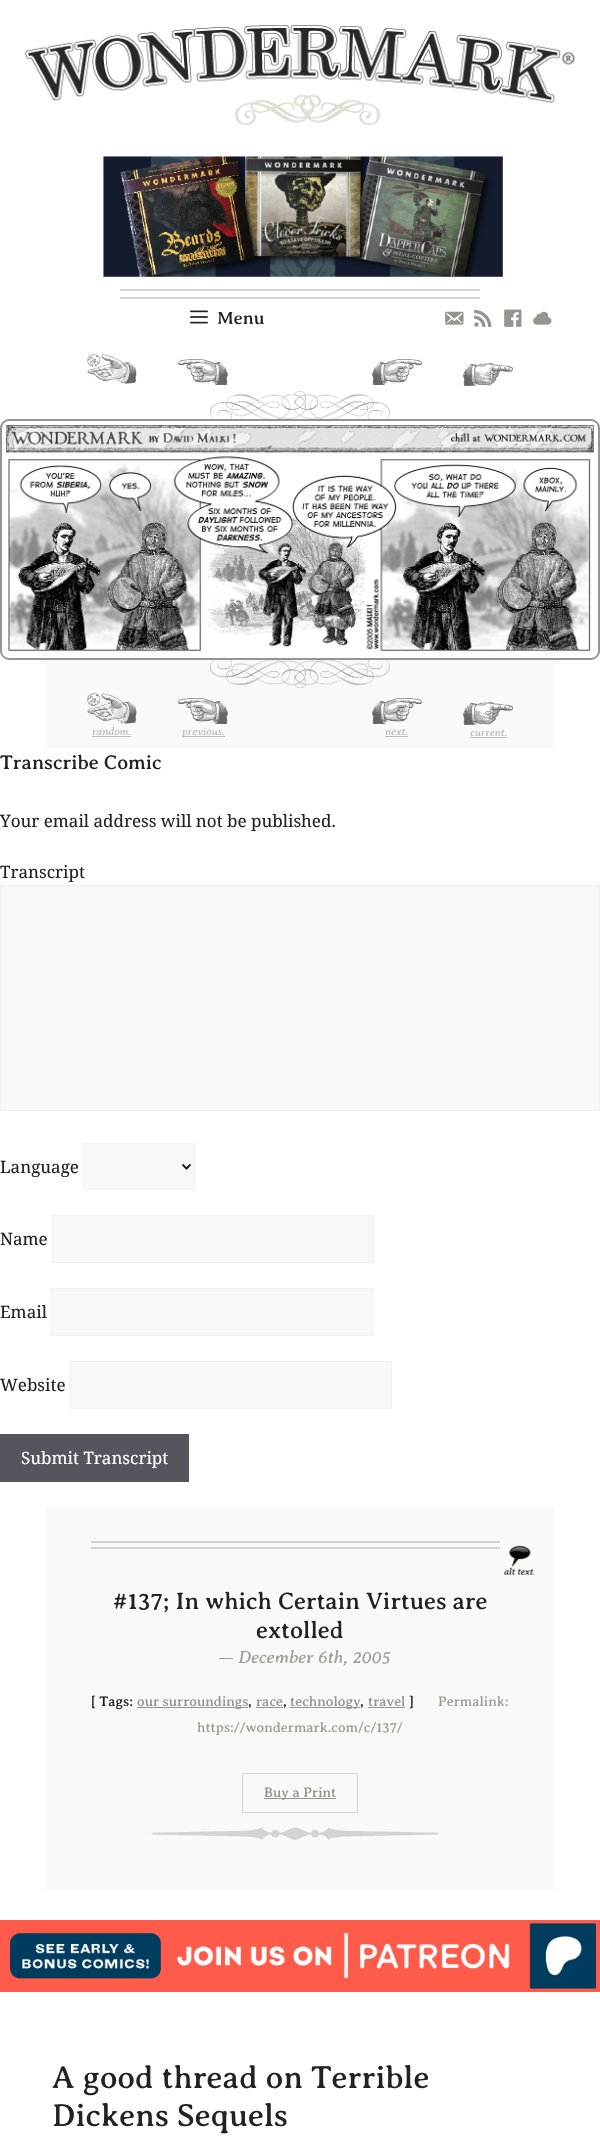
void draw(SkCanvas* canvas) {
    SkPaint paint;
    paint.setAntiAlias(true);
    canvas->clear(0xFFFFFFFF);
    canvas->drawImageRect(SkImages::DeferredFromEncodedData(SkData::MakeFromFileName("img1.png")), SkRect::MakeXYWH(25, 25, 550, 100), SkSamplingOptions());
    canvas->drawImageRect(SkImages::DeferredFromEncodedData(SkData::MakeFromFileName("img2.png")), SkRect::MakeXYWH(103, 156, 400, 121), SkSamplingOptions());
    paint.setColor(0xFFD4D3D3);
    canvas->drawRect(SkRect::MakeXYWH(120, 289, 360, 2), paint);
    canvas->drawRect(SkRect::MakeXYWH(120, 297, 360, 2), paint);
    canvas->drawImageRect(SkImages::DeferredFromEncodedData(SkData::MakeFromFileName("img3.png")), SkRect::MakeXYWH(190, 310, 18, 14), SkSamplingOptions());
    SkFont font1(fontMgr->matchFamilyStyle("Averia Serif Libre", SkFontStyle::Normal()), 18);
    font1.setSubpixel(true);
    paint.setColor(0xFF222222);
    canvas->drawString("Menu", 217, 324, font1, paint);
    canvas->drawImageRect(SkImages::DeferredFromEncodedData(SkData::MakeFromFileName("img4.png")), SkRect::MakeXYWH(445, 311, 19, 14), SkSamplingOptions());
    canvas->drawImageRect(SkImages::DeferredFromEncodedData(SkData::MakeFromFileName("img5.png")), SkRect::MakeXYWH(474, 309, 18, 18), SkSamplingOptions());
    canvas->drawImageRect(SkImages::DeferredFromEncodedData(SkData::MakeFromFileName("img6.png")), SkRect::MakeXYWH(504, 309, 18, 18), SkSamplingOptions());
    canvas->drawImageRect(SkImages::DeferredFromEncodedData(SkData::MakeFromFileName("img7.png")), SkRect::MakeXYWH(533, 311, 19, 14), SkSamplingOptions());
    canvas->drawImageRect(SkImages::DeferredFromEncodedData(SkData::MakeFromFileName("img8.png")), SkRect::MakeXYWH(210, 391, 180, 28), SkSamplingOptions());
    canvas->drawImageRect(SkImages::DeferredFromEncodedData(SkData::MakeFromFileName("img9.png")), SkRect::MakeXYWH(87, 354, 50, 30), SkSamplingOptions());
    canvas->drawImageRect(SkImages::DeferredFromEncodedData(SkData::MakeFromFileName("img10.png")), SkRect::MakeXYWH(178, 359, 50, 26), SkSamplingOptions());
    canvas->drawImageRect(SkImages::DeferredFromEncodedData(SkData::MakeFromFileName("img11.png")), SkRect::MakeXYWH(372, 359, 50, 26), SkSamplingOptions());
    canvas->drawImageRect(SkImages::DeferredFromEncodedData(SkData::MakeFromFileName("img12.png")), SkRect::MakeXYWH(463, 363, 50, 23), SkSamplingOptions());
    paint.setStyle(SkPaint::kStroke_Style);
    paint.setStrokeWidth(2);
    paint.setColor(0xFF949492);
    canvas->drawRoundRect(SkRect::MakeXYWH(1, 420, 598, 239), 8, 8, paint);
    canvas->drawImageRect(SkImages::DeferredFromEncodedData(SkData::MakeFromFileName("img13.png")), SkRect::MakeXYWH(6, 425, 588, 227), SkSamplingOptions());
    paint.setStyle(SkPaint::kFill_Style);
    paint.setColor(0xFFF9F9F7);
    canvas->drawRect(SkRect::MakeXYWH(45, 660, 510, 88), paint);
    canvas->drawImageRect(SkImages::DeferredFromEncodedData(SkData::MakeFromFileName("img14.png")), SkRect::MakeXYWH(210, 660, 180, 28), SkSamplingOptions());
    canvas->drawImageRect(SkImages::DeferredFromEncodedData(SkData::MakeFromFileName("img15.png")), SkRect::MakeXYWH(87, 693, 50, 31), SkSamplingOptions());
    SkFont font2(fontMgr->matchFamilyStyle("Averia Serif Libre", SkFontStyle::Italic()), 11);
    font2.setSubpixel(true);
    paint.setColor(0xFFBEBCB7);
    canvas->drawString("random.", 92, 735, font2, paint);
    canvas->drawRect(SkRect::MakeXYWH(92, 736, 39, 1), paint);
    canvas->drawImageRect(SkImages::DeferredFromEncodedData(SkData::MakeFromFileName("img16.png")), SkRect::MakeXYWH(178, 698, 50, 26), SkSamplingOptions());
    canvas->drawRect(SkRect::MakeXYWH(182, 736, 43, 1), paint);
    canvas->drawString("previous.", 182, 735, font2, paint);
    canvas->drawImageRect(SkImages::DeferredFromEncodedData(SkData::MakeFromFileName("img17.png")), SkRect::MakeXYWH(372, 698, 50, 26), SkSamplingOptions());
    canvas->drawString("next.", 385, 735, font2, paint);
    canvas->drawRect(SkRect::MakeXYWH(385, 736, 23, 1), paint);
    canvas->drawImageRect(SkImages::DeferredFromEncodedData(SkData::MakeFromFileName("img18.png")), SkRect::MakeXYWH(463, 702, 50, 23), SkSamplingOptions());
    canvas->drawString("current.", 470, 736, font2, paint);
    canvas->drawRect(SkRect::MakeXYWH(470, 737, 37, 1), paint);
    SkFont font3(fontMgr->matchFamilyStyle("Averia Serif Libre", SkFontStyle::Normal()), 20);
    font3.setSubpixel(true);
    paint.setColor(0xFF222222);
    canvas->drawString("Transcribe Comic", 0, 769, font3, paint);
    SkFont font4(fontMgr->matchFamilyStyle("Noto Serif", SkFontStyle::Normal()), 17);
    font4.setSubpixel(true);
    canvas->drawString("Your email address will not be published.", 0, 827, font4, paint);
    canvas->drawString("Transcript", 0, 878, font4, paint);
    paint.setColor(0xFFF7F8F9);
    canvas->drawRect(SkRect::MakeXYWH(0.5f, 885.5f, 599, 225), paint);
    paint.setStyle(SkPaint::kStroke_Style);
    paint.setStrokeWidth(1);
    paint.setColor(0xFFF0F0F0);
    canvas->drawRect(SkRect::MakeXYWH(0.5f, 885.5f, 599, 225), paint);
    paint.setStyle(SkPaint::kFill_Style);
    paint.setColor(0xFF222222);
    canvas->drawString("Language", 0, 1173, font4, paint);
    paint.setColor(0xFFF7F8F9);
    canvas->drawRect(SkRect::MakeXYWH(83.5f, 1143.5f, 111, 46), paint);
    paint.setStyle(SkPaint::kStroke_Style);
    paint.setColor(0xFFF0F0F0);
    canvas->drawRect(SkRect::MakeXYWH(83.5f, 1143.5f, 111, 46), paint);
    paint.setStrokeWidth(2);
    paint.setColor(0xFF222222);
    canvas->drawPath(SkPathBuilder().moveTo(182.5f, 1164.5f).lineTo(186.5f, 1168.5f).lineTo(190.5f, 1164.5f).detach(), paint);
    paint.setStyle(SkPaint::kFill_Style);
    canvas->drawString("Name", 0, 1245, font4, paint);
    paint.setColor(0xFFF7F8F9);
    canvas->drawRect(SkRect::MakeXYWH(52.5f, 1215.5f, 321, 47), paint);
    paint.setStyle(SkPaint::kStroke_Style);
    paint.setStrokeWidth(1);
    paint.setColor(0xFFF0F0F0);
    canvas->drawRect(SkRect::MakeXYWH(52.5f, 1215.5f, 321, 47), paint);
    paint.setStyle(SkPaint::kFill_Style);
    paint.setColor(0xFF222222);
    canvas->drawString("Email", 0, 1318, font4, paint);
    paint.setColor(0xFFF7F8F9);
    canvas->drawRect(SkRect::MakeXYWH(51.5f, 1288.5f, 321, 47), paint);
    paint.setStyle(SkPaint::kStroke_Style);
    paint.setColor(0xFFF0F0F0);
    canvas->drawRect(SkRect::MakeXYWH(51.5f, 1288.5f, 321, 47), paint);
    paint.setStyle(SkPaint::kFill_Style);
    paint.setColor(0xFF222222);
    canvas->drawString("Website", 0, 1391, font4, paint);
    paint.setColor(0xFFF7F8F9);
    canvas->drawRect(SkRect::MakeXYWH(70.5f, 1361.5f, 321, 47), paint);
    paint.setStyle(SkPaint::kStroke_Style);
    paint.setColor(0xFFF0F0F0);
    canvas->drawRect(SkRect::MakeXYWH(70.5f, 1361.5f, 321, 47), paint);
    paint.setStyle(SkPaint::kFill_Style);
    paint.setColor(0xFF55555E);
    canvas->drawRect(SkRect::MakeXYWH(0, 1434, 189, 48), paint);
    paint.setColor(0xFFFFFFFF);
    canvas->drawString("Submit Transcript", 21, 1464, font4, paint);
    paint.setColor(0xFFF9F9F7);
    canvas->drawRect(SkRect::MakeXYWH(45, 1507, 510, 383), paint);
    paint.setColor(0xFFD4D3D3);
    canvas->drawRect(SkRect::MakeXYWH(91, 1541, 409, 2), paint);
    canvas->drawRect(SkRect::MakeXYWH(91, 1547, 409, 2), paint);
    canvas->drawImageRect(SkImages::DeferredFromEncodedData(SkData::MakeFromFileName("img19.png")), SkRect::MakeXYWH(504, 1545, 30, 30), SkSamplingOptions());
    SkFont font5(fontMgr->matchFamilyStyle("Averia Serif Libre", SkFontStyle::Normal()), 24);
    font5.setSubpixel(true);
    paint.setColor(0xFF222222);
    canvas->drawString("#137; In which Certain Virtues are", 113, 1609, font5, paint);
    canvas->drawString("extolled", 256, 1638, font5, paint);
    SkFont font6(fontMgr->matchFamilyStyle("Averia Serif Libre", SkFontStyle::Italic()), 18);
    font6.setSubpixel(true);
    paint.setColor(0xFF9E9E96);
    canvas->drawString("— December 6th, 2005", 218, 1663, font6, paint);
    SkFont font7(fontMgr->matchFamilyStyle("Averia Serif Libre", SkFontStyle::Normal()), 14);
    font7.setSubpixel(true);
    paint.setColor(0xFF222222);
    canvas->drawString("[ Tags:", 91, 1706, font7, paint);
    paint.setColor(0xFF97938D);
    canvas->drawRect(SkRect::MakeXYWH(137, 1707, 111, 1), paint);
    canvas->drawString("our surroundings", 137, 1706, font7, paint);
    paint.setColor(0xFF222222);
    canvas->drawString(",", 248, 1706, font7, paint);
    paint.setColor(0xFF97938D);
    canvas->drawString("race", 256, 1706, font7, paint);
    canvas->drawRect(SkRect::MakeXYWH(256, 1707, 27, 1), paint);
    paint.setColor(0xFF222222);
    canvas->drawString(",", 283, 1706, font7, paint);
    paint.setColor(0xFF97938D);
    canvas->drawRect(SkRect::MakeXYWH(290, 1707, 70, 1), paint);
    canvas->drawString("technology", 290, 1706, font7, paint);
    paint.setColor(0xFF222222);
    canvas->drawString(",", 360, 1706, font7, paint);
    paint.setColor(0xFF97938D);
    canvas->drawString("travel", 368, 1706, font7, paint);
    canvas->drawRect(SkRect::MakeXYWH(368, 1707, 37, 1), paint);
    paint.setColor(0xFF222222);
    canvas->drawString("]", 409, 1706, font7, paint);
    paint.setColor(0xFF9E9E96);
    canvas->drawString("Permalink:", 438, 1706, font7, paint);
    canvas->drawString("https://wondermark.com/c/137/", 197, 1732, font7, paint);
    paint.setStyle(SkPaint::kStroke_Style);
    paint.setColor(0xFFD4D3D3);
    canvas->drawRect(SkRect::MakeXYWH(242.5f, 1773.5f, 115, 39), paint);
    paint.setStyle(SkPaint::kFill_Style);
    paint.setColor(0xFF97938D);
    canvas->drawRect(SkRect::MakeXYWH(264, 1798, 72, 1), paint);
    canvas->drawString("Buy a Print", 264, 1797, font7, paint);
    canvas->drawImageRect(SkImages::DeferredFromEncodedData(SkData::MakeFromFileName("img20.png")), SkRect::MakeXYWH(151, 1827, 288, 13), SkSamplingOptions());
    canvas->drawImageRect(SkImages::DeferredFromEncodedData(SkData::MakeFromFileName("img21.png")), SkRect::MakeXYWH(0, 1920, 600, 72), SkSamplingOptions());
    SkFont font8(fontMgr->matchFamilyStyle("Averia Serif Libre", SkFontStyle::Normal()), 32);
    font8.setSubpixel(true);
    paint.setColor(0xFF222222);
    canvas->drawString("A good thread on Terrible", 52, 2088, font8, paint);
    canvas->drawString("Dickens Sequels", 52, 2126, font8, paint);
}
